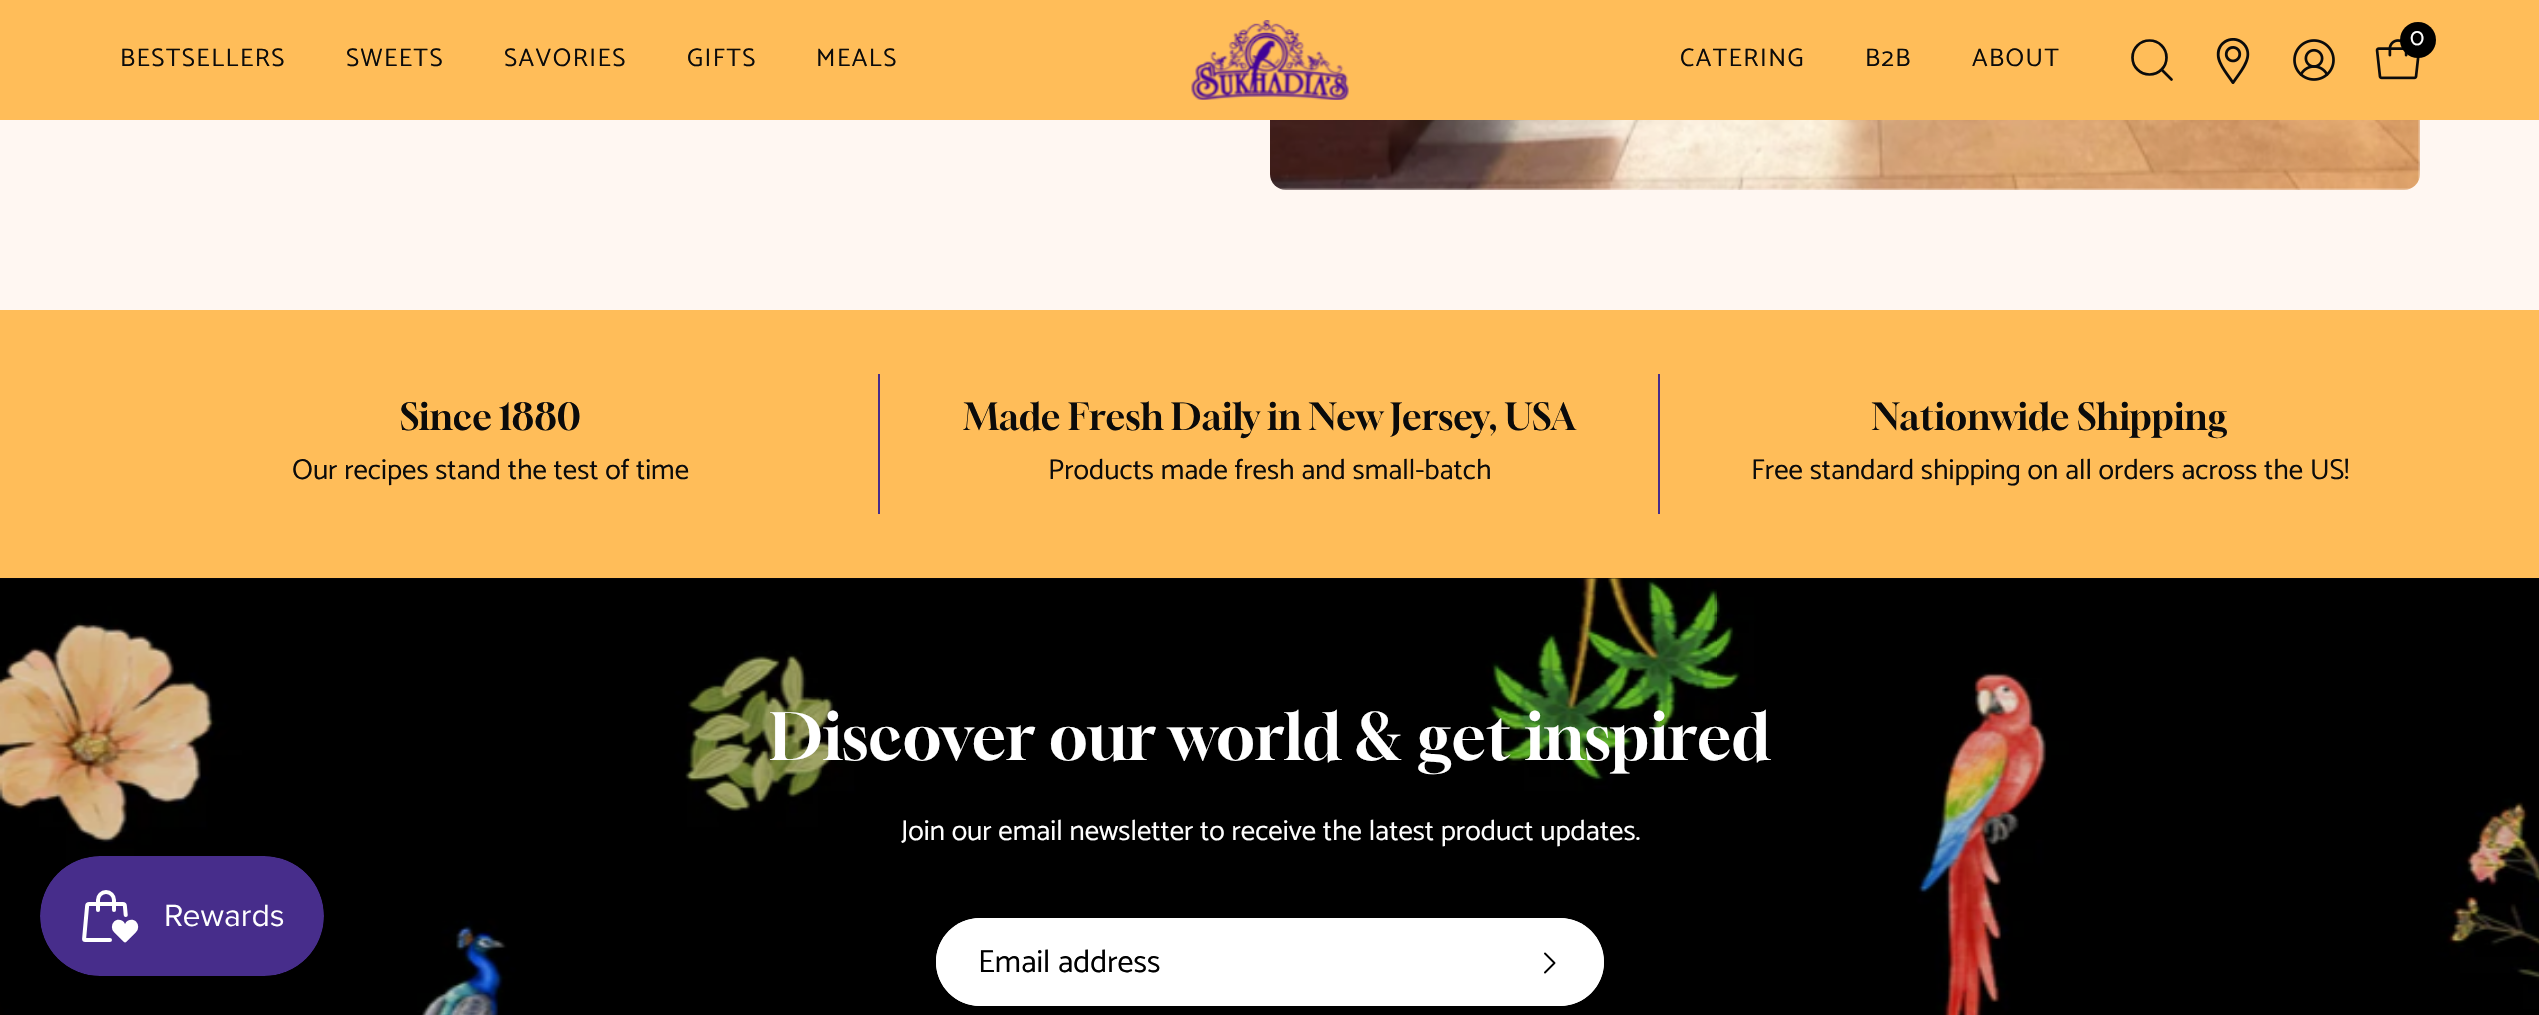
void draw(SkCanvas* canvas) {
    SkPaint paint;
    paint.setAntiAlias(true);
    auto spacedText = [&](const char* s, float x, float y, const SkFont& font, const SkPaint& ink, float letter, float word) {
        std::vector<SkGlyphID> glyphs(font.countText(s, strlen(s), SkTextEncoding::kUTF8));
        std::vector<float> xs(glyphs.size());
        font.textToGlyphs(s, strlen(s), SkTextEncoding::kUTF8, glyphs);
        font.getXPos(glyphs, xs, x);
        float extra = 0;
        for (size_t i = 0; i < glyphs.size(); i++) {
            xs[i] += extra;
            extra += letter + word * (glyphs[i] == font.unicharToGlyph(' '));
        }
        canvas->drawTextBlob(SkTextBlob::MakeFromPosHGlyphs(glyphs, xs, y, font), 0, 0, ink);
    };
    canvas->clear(0xFFFFF7F2);
    paint.setColor(0xFFFFBD59);
    canvas->drawRect(SkRect::MakeXYWH(0, 0, 2539, 120), paint);
    canvas->drawImageRect(SkImages::DeferredFromEncodedData(SkData::MakeFromFileName("img1.png")), SkRect::MakeXYWH(1191, 20, 158, 80), SkSamplingOptions());
    SkFont font1(fontMgr->matchFamilyStyle("Catamaran", SkFontStyle::Normal()), 25.5f);
    font1.setSubpixel(true);
    paint.setColor(0xFF0B0B0B);
    spacedText("BESTSELLERS", 120, 66, font1, paint, 1.5f, 0);
    spacedText("SWEETS", 346, 66, font1, paint, 1.5f, 0);
    spacedText("SAVORIES", 504, 66, font1, paint, 1.5f, 0);
    spacedText("GIFTS", 687, 66, font1, paint, 1.5f, 0);
    spacedText("MEALS", 816, 66, font1, paint, 1.5f, 0);
    spacedText("CATERING", 1680, 66, font1, paint, 1.5f, 0);
    spacedText("B2B", 1865, 66, font1, paint, 1.5f, 0);
    spacedText("ABOUT", 1972, 66, font1, paint, 1.5f, 0);
    paint.setStyle(SkPaint::kStroke_Style);
    paint.setStrokeWidth(2.7f);
    paint.setStrokeCap(SkPaint::kRound_Cap);
    paint.setStrokeJoin(SkPaint::kRound_Join);
    canvas->drawPath(SkPathBuilder().moveTo(2149.5f, 74.5f).cubicTo(2159, 74.5f, 2166.5f, 67, 2166.5f, 57.5f).cubicTo(2166.5f, 48, 2159, 40.5f, 2149.5f, 40.5f).cubicTo(2140, 40.5f, 2132.5f, 48, 2132.5f, 57.5f).cubicTo(2132.5f, 67, 2140, 74.5f, 2149.5f, 74.5f).close().moveTo(2161.5f, 69.5f).lineTo(2171.5f, 79.5f).detach(), paint);
    canvas->drawImageRect(SkImages::DeferredFromEncodedData(SkData::MakeFromFileName("img2.png")), SkRect::MakeXYWH(2216, 38, 34, 46), SkSamplingOptions());
    canvas->drawImageRect(SkImages::DeferredFromEncodedData(SkData::MakeFromFileName("img3.png")), SkRect::MakeXYWH(2293, 39, 42, 42), SkSamplingOptions());
    canvas->drawImageRect(SkImages::DeferredFromEncodedData(SkData::MakeFromFileName("img4.png")), SkRect::MakeXYWH(2375, 39, 45, 41), SkSamplingOptions());
    paint.setStyle(SkPaint::kFill_Style);
    paint.setColor(0xFF000000);
    canvas->drawCircle(2418, 40, 18, paint);
    SkFont font2(fontMgr->matchFamilyStyle("Catamaran", SkFontStyle::Normal()), 24);
    font2.setSubpixel(true);
    paint.setColor(0xFFFFFFFF);
    spacedText("0", 2410, 45, font2, paint, 1.5f, 0);
    canvas->drawImageRect(SkImages::DeferredFromEncodedData(SkData::MakeFromFileName("img5.png")), SkRect::MakeXYWH(1270, 120, 1150, 70), SkSamplingOptions());
    paint.setColor(0xFFFFBD59);
    canvas->drawRect(SkRect::MakeXYWH(0, 310, 2539, 268), paint);
    SkFont font3(fontMgr->matchFamilyStyle("Gloock", SkFontStyle::Normal()), 36.5f);
    font3.setSubpixel(true);
    paint.setColor(0xFF0B0B0B);
    canvas->drawString("Since 1880", 400, 430, font3, paint);
    SkFont font4(fontMgr->matchFamilyStyle("Catamaran", SkFontStyle::Normal()), 28.8f);
    font4.setSubpixel(true);
    canvas->drawString("Our recipes stand the test of time", 292, 479, font4, paint);
    paint.setColor(0xFF472D8B);
    canvas->drawRect(SkRect::MakeXYWH(878, 374, 2, 140), paint);
    paint.setColor(0xFF0B0B0B);
    canvas->drawString("Made Fresh Daily in New Jersey, USA", 964, 430, font3, paint);
    canvas->drawString("Products made fresh and small-batch", 1048, 479, font4, paint);
    paint.setColor(0xFF472D8B);
    canvas->drawRect(SkRect::MakeXYWH(1658, 374, 2, 140), paint);
    paint.setColor(0xFF0B0B0B);
    canvas->drawString("Nationwide Shipping", 1872, 430, font3, paint);
    canvas->drawString("Free standard shipping on all orders across the US!", 1751, 479, font4, paint);
    canvas->drawRect(SkRect::MakeXYWH(0, 578, 2539, 437), paint);
    canvas->drawImageRect(SkImages::DeferredFromEncodedData(SkData::MakeFromFileName("img7.png")), SkRect::MakeXYWH(0, 578, 2539, 437), SkSamplingOptions());
    paint.setColor(0x1A000000);
    canvas->drawRect(SkRect::MakeXYWH(0, 578, 2539, 437), paint);
    canvas->drawImageRect(SkImages::DeferredFromEncodedData(SkData::MakeFromFileName("img6.png")), SkRect::MakeXYWH(40, 856, 284, 120), SkSamplingOptions());
    SkFont font5(fontMgr->matchFamilyStyle("Gloock", SkFontStyle::Normal()), 63.8f);
    font5.setSubpixel(true);
    paint.setColor(0xFFFFFFFF);
    canvas->drawString("Discover our world & get inspired", 770, 760, font5, paint);
    canvas->drawString("Join our email newsletter to receive the latest product updates.", 901, 840, font4, paint);
    canvas->drawPath(SkPathBuilder().moveTo(980, 918).lineTo(1496, 918).lineTo(1496, 1006).lineTo(980, 1006).cubicTo(955.5f, 1006, 936, 986.5f, 936, 962).cubicTo(936, 937.5f, 955.5f, 918, 980, 918).close().detach(), paint);
    canvas->drawPath(SkPathBuilder(SkPathFillType::kEvenOdd).moveTo(980, 918).lineTo(1496, 918).lineTo(1496, 1006).lineTo(980, 1006).cubicTo(956, 1006, 936, 986, 936, 962).cubicTo(936, 938, 956, 918, 980, 918).close().moveTo(980, 920).lineTo(1496, 920).lineTo(1496, 1004).lineTo(980, 1004).cubicTo(957, 1004, 938, 985, 938, 962).cubicTo(938, 939, 957, 920, 980, 920).close().detach(), paint);
    SkFont font6(fontMgr->matchFamilyStyle("Catamaran", SkFontStyle::Normal()), 32);
    font6.setSubpixel(true);
    paint.setColor(0xFF000000);
    canvas->drawString("Email address", 978, 972, font6, paint);
    paint.setColor(0xFFFFFFFF);
    canvas->drawPath(SkPathBuilder().moveTo(1496, 918).lineTo(1560, 918).cubicTo(1584.5f, 918, 1604, 937.5f, 1604, 962).cubicTo(1604, 986.5f, 1584.5f, 1006, 1560, 1006).lineTo(1496, 1006).close().detach(), paint);
    canvas->drawPath(SkPathBuilder(SkPathFillType::kEvenOdd).moveTo(1496, 918).lineTo(1560, 918).cubicTo(1584, 918, 1604, 938, 1604, 962).cubicTo(1604, 986, 1584, 1006, 1560, 1006).lineTo(1496, 1006).close().moveTo(1496, 920).lineTo(1560, 920).cubicTo(1583, 920, 1602, 939, 1602, 962).cubicTo(1602, 985, 1583, 1004, 1560, 1004).lineTo(1496, 1004).close().detach(), paint);
    paint.setStyle(SkPaint::kStroke_Style);
    paint.setStrokeWidth(1.9f);
    paint.setColor(0xFF000000);
    canvas->drawPath(SkPathBuilder().moveTo(1545, 953.5f).lineTo(1554.5f, 963).lineTo(1545, 972.5f).detach(), paint);
}
